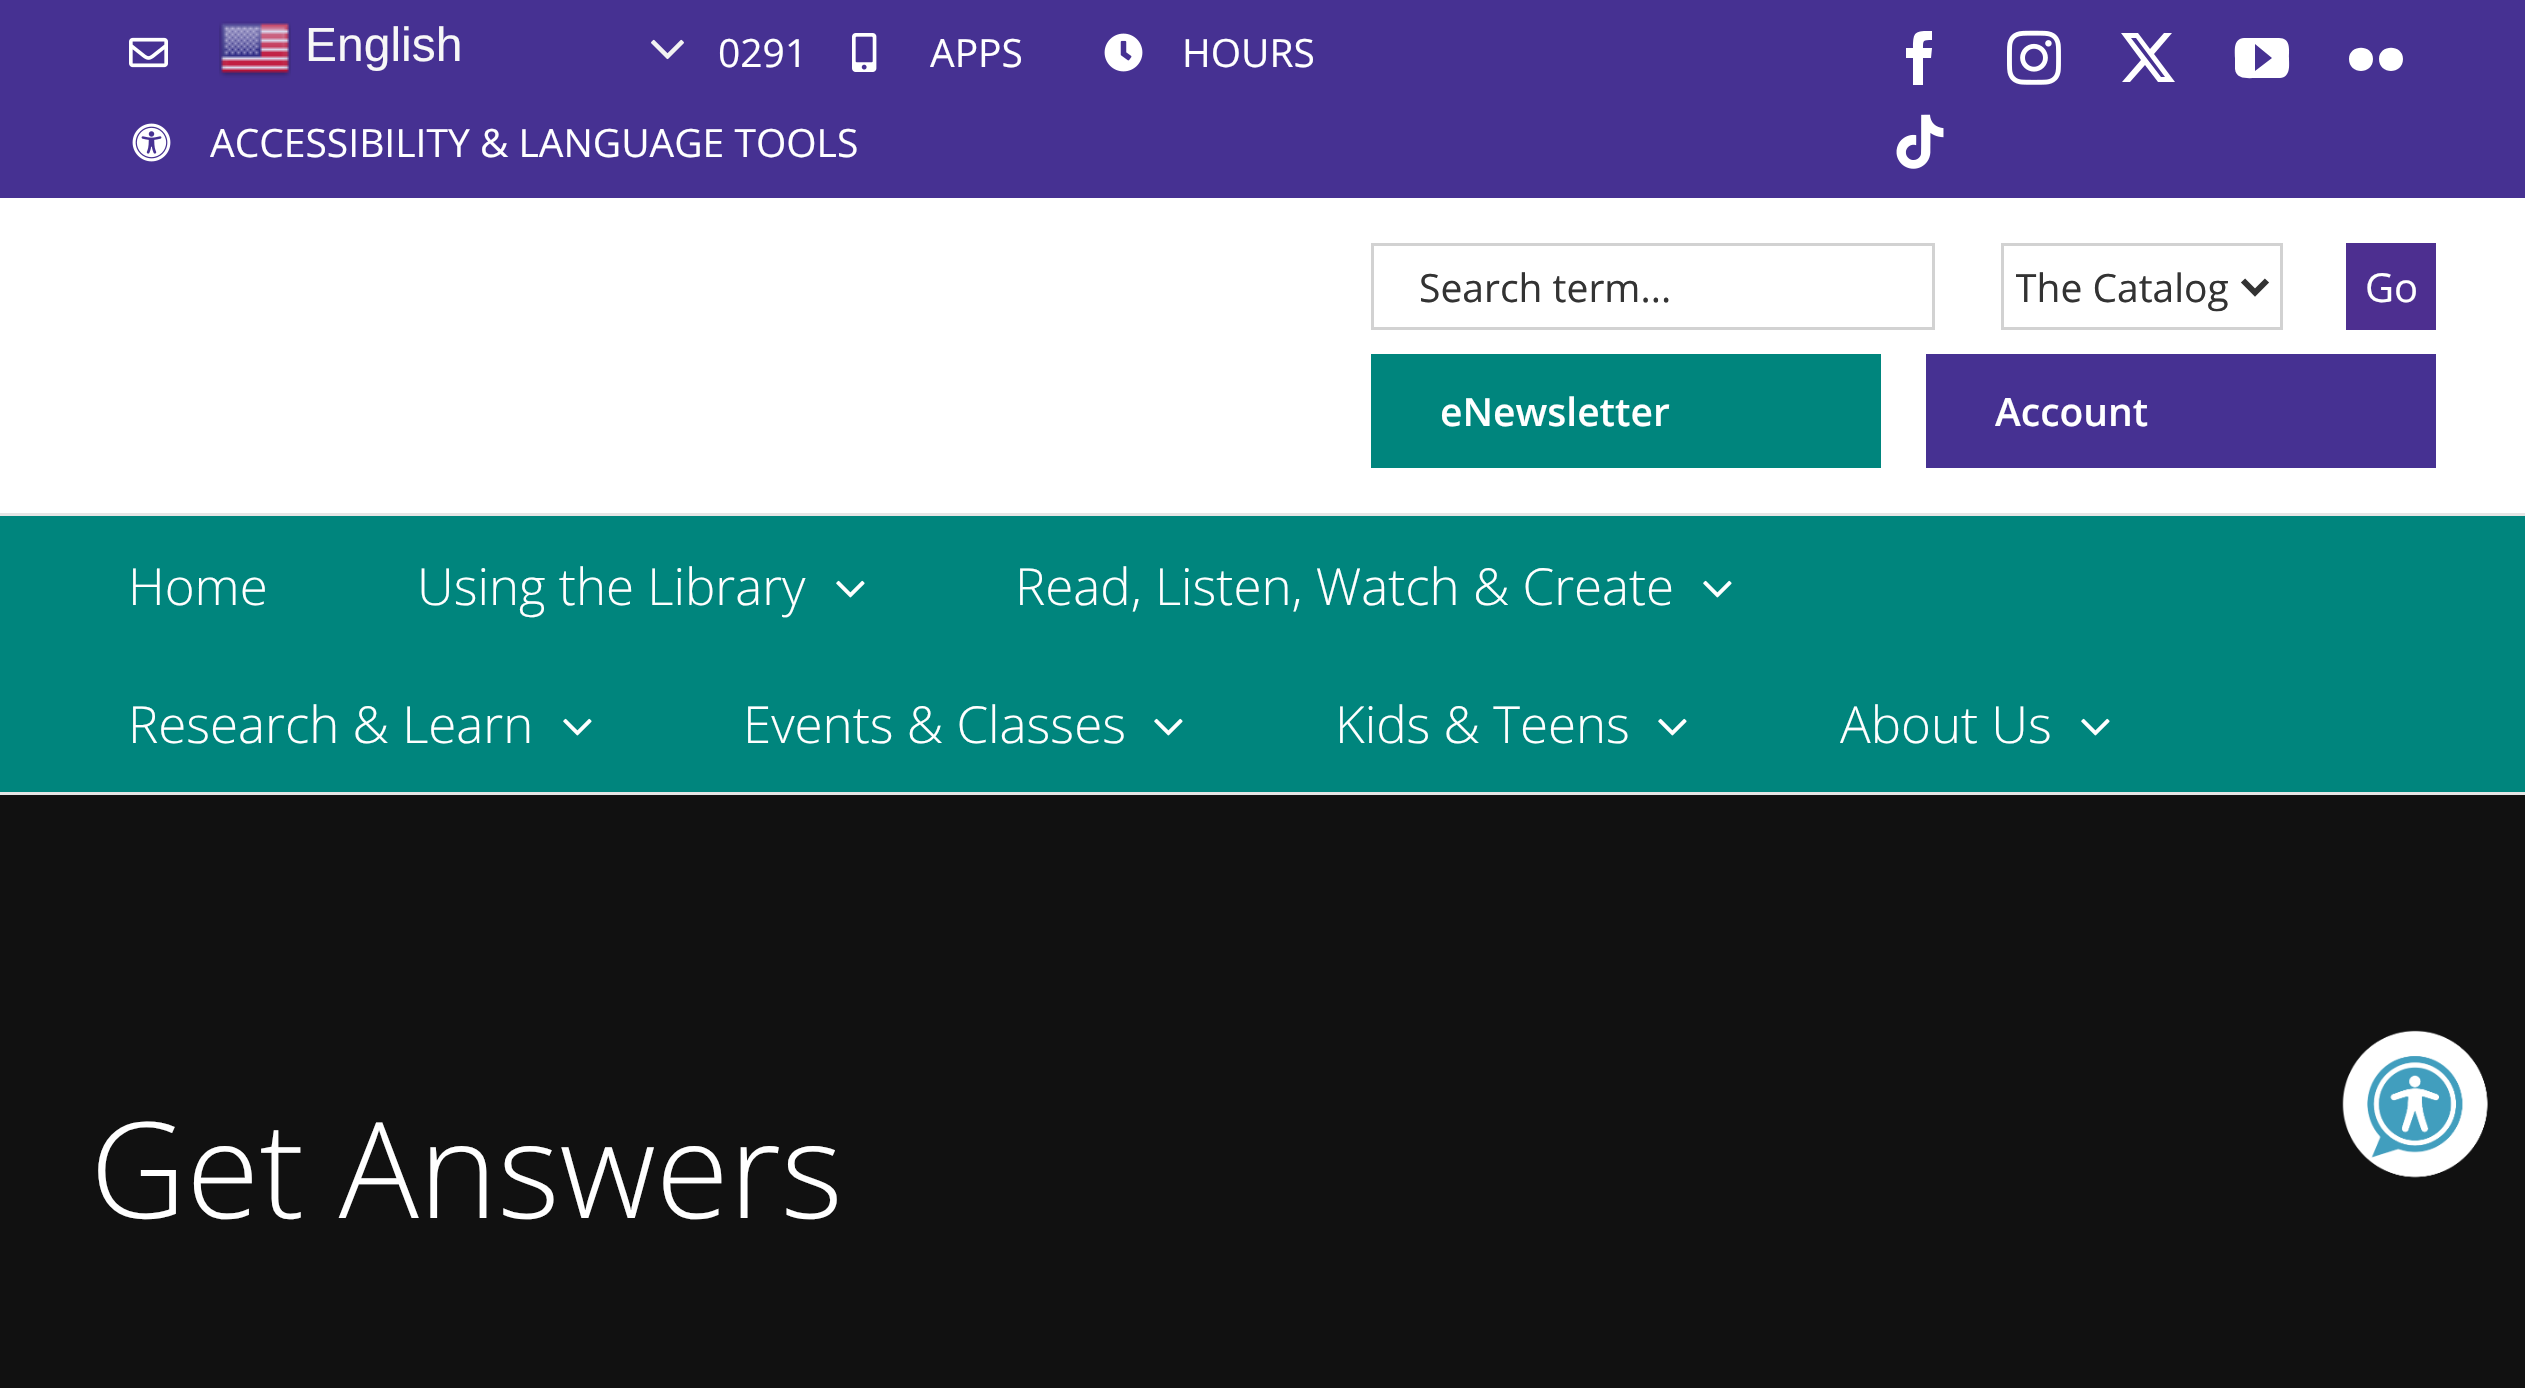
void draw(SkCanvas* canvas) {
    SkPaint paint;
    paint.setAntiAlias(true);
    canvas->clear(0xFFFFFFFF);
    paint.setColor(0xFF463192);
    canvas->drawRect(SkRect::MakeXYWH(0, 0, 2525, 198), paint);
    canvas->drawImageRect(SkImages::DeferredFromEncodedData(SkData::MakeFromFileName("img1.png")), SkRect::MakeXYWH(219, 21, 72, 57), SkSamplingOptions());
    SkFont font1(fontMgr->matchFamilyStyle("Liberation Sans", SkFontStyle::Normal()), 48);
    font1.setSubpixel(true);
    paint.setColor(0xFFF7F7F7);
    canvas->drawString("English", 305, 61, font1, paint);
    canvas->drawImageRect(SkImages::DeferredFromEncodedData(SkData::MakeFromFileName("img2.png")), SkRect::MakeXYWH(651, 39, 33, 21), SkSamplingOptions());
    canvas->drawImageRect(SkImages::DeferredFromEncodedData(SkData::MakeFromFileName("img3.png")), SkRect::MakeXYWH(129, 37, 39, 31), SkSamplingOptions());
    SkFont font2(fontMgr->matchFamilyStyle("Open Sans", SkFontStyle::Normal()), 39);
    font2.setSubpixel(true);
    paint.setColor(0xFFFFFFFF);
    canvas->drawString("0291", 718, 67, font2, paint);
    canvas->drawImageRect(SkImages::DeferredFromEncodedData(SkData::MakeFromFileName("img4.png")), SkRect::MakeXYWH(852, 33, 25, 39), SkSamplingOptions());
    canvas->drawString("APPS", 930, 67, font2, paint);
    canvas->drawImageRect(SkImages::DeferredFromEncodedData(SkData::MakeFromFileName("img5.png")), SkRect::MakeXYWH(1104, 33, 39, 39), SkSamplingOptions());
    canvas->drawString("HOURS", 1182, 67, font2, paint);
    canvas->drawImageRect(SkImages::DeferredFromEncodedData(SkData::MakeFromFileName("img6.png")), SkRect::MakeXYWH(132, 123, 39, 39), SkSamplingOptions());
    canvas->drawString("ACCESSIBILITY & LANGUAGE TOOLS", 210, 157, font2, paint);
    canvas->drawPath(SkPathBuilder().moveTo(1923, 85).lineTo(1913, 85).lineTo(1913, 58).lineTo(1906, 58).lineTo(1906, 48).lineTo(1913, 48).cubicTo(1913, 31, 1915, 31, 1932, 31).lineTo(1932, 40).cubicTo(1923, 40, 1923, 40, 1923, 48).lineTo(1932, 48).lineTo(1931, 58).lineTo(1923, 58).close().detach(), paint);
    canvas->drawImageRect(SkImages::DeferredFromEncodedData(SkData::MakeFromFileName("img7.png")), SkRect::MakeXYWH(2007, 30, 54, 55), SkSamplingOptions());
    canvas->drawPath(SkPathBuilder().moveTo(2164, 33).lineTo(2172, 33).lineTo(2154, 54).lineTo(2175, 82).lineTo(2158, 82).lineTo(2145, 65).lineTo(2130, 82).lineTo(2122, 82).lineTo(2141, 60).lineTo(2121, 33).lineTo(2138, 33).lineTo(2150, 49).close().moveTo(2161, 77).lineTo(2165, 77).lineTo(2136, 38).lineTo(2131, 38).close().detach(), paint);
    canvas->drawPath(SkPathBuilder().moveTo(2279, 38).lineTo(2244, 38).cubicTo(2233, 39, 2235, 50, 2235, 58).lineTo(2235, 69).cubicTo(2236, 80, 2249, 78, 2256, 78).lineTo(2280, 78).cubicTo(2291, 77, 2289, 65, 2289, 58).cubicTo(2289, 50, 2291, 38, 2279, 38).close().moveTo(2255, 71).lineTo(2255, 44).lineTo(2272, 58).close().detach(), paint);
    canvas->drawPath(SkPathBuilder().moveTo(2349, 59).cubicTo(2349, 44, 2373, 44, 2373, 59).cubicTo(2373, 75, 2349, 75, 2349, 59).close().moveTo(2379, 59).cubicTo(2379, 44, 2403, 44, 2403, 59).cubicTo(2403, 75, 2379, 75, 2379, 59).close().detach(), paint);
    canvas->drawImageRect(SkImages::DeferredFromEncodedData(SkData::MakeFromFileName("img8.png")), SkRect::MakeXYWH(1896, 114, 48, 55), SkSamplingOptions());
    paint.setColor(0xFFE5E5E5);
    canvas->drawRect(SkRect::MakeXYWH(0, 513, 2525, 3), paint);
    paint.setStyle(SkPaint::kStroke_Style);
    paint.setStrokeWidth(3);
    paint.setColor(0xFFD2D2D2);
    canvas->drawRect(SkRect::MakeXYWH(1372.5f, 244.5f, 561, 84), paint);
    paint.setStyle(SkPaint::kFill_Style);
    paint.setColor(0xFF333333);
    canvas->drawString("Search term...", 1419, 302, font2, paint);
    paint.setStyle(SkPaint::kStroke_Style);
    paint.setColor(0xFFD2D2D2);
    canvas->drawRect(SkRect::MakeXYWH(2002.5f, 244.5f, 279, 84), paint);
    paint.setStrokeWidth(6);
    paint.setColor(0xFF333333);
    canvas->drawPath(SkPathBuilder().moveTo(2243, 280.5f).lineTo(2255, 292.5f).lineTo(2267, 280.5f).detach(), paint);
    canvas->save();
    canvas->clipRect(SkRect::MakeXYWH(2016, 258, 216, 60));
    paint.setStyle(SkPaint::kFill_Style);
    canvas->drawString("The Catalog", 2015, 302, font2, paint);
    canvas->restore();
    paint.setColor(0xFF4D2F90);
    canvas->drawRect(SkRect::MakeXYWH(2346, 243, 90, 87), paint);
    SkFont font3(fontMgr->matchFamilyStyle("Open Sans", SkFontStyle::Normal()), 40);
    font3.setSubpixel(true);
    paint.setColor(0xFFFFFFFF);
    canvas->drawString("Go", 2365, 302, font3, paint);
    paint.setColor(0xFF00857D);
    canvas->drawRect(SkRect::MakeXYWH(1371, 354, 510, 114), paint);
    SkFont font4(fontMgr->matchFamilyStyle("Open Sans", SkFontStyle(600, SkFontStyle::kNormal_Width, SkFontStyle::kUpright_Slant)), 39);
    font4.setSubpixel(true);
    paint.setColor(0xFFFFFFFF);
    canvas->drawString("eNewsletter", 1440, 426, font4, paint);
    paint.setColor(0xFF463192);
    canvas->drawRect(SkRect::MakeXYWH(1926, 354, 510, 114), paint);
    paint.setColor(0xFFFFFFFF);
    canvas->drawString("Account", 1995, 426, font4, paint);
    paint.setColor(0xFF00857D);
    canvas->drawRect(SkRect::MakeXYWH(0, 516, 2525, 276), paint);
    paint.setColor(0xFFE5E5E5);
    canvas->drawRect(SkRect::MakeXYWH(0, 792, 2525, 3), paint);
    SkFont font5(fontMgr->matchFamilyStyle("Open Sans", SkFontStyle(300, SkFontStyle::kNormal_Width, SkFontStyle::kUpright_Slant)), 51);
    font5.setSubpixel(true);
    paint.setColor(0xFFFFFFFF);
    canvas->drawString("Home", 128, 605, font5, paint);
    canvas->drawString("Using the Library", 417, 605, font5, paint);
    canvas->drawImageRect(SkImages::DeferredFromEncodedData(SkData::MakeFromFileName("img9.png")), SkRect::MakeXYWH(836, 580, 29, 18), SkSamplingOptions());
    canvas->drawString("Read, Listen, Watch & Create", 1015, 605, font5, paint);
    canvas->drawImageRect(SkImages::DeferredFromEncodedData(SkData::MakeFromFileName("img9.png")), SkRect::MakeXYWH(1703, 580, 29, 18), SkSamplingOptions());
    canvas->drawString("Research & Learn", 128, 743, font5, paint);
    canvas->drawImageRect(SkImages::DeferredFromEncodedData(SkData::MakeFromFileName("img9.png")), SkRect::MakeXYWH(563, 718, 29, 18), SkSamplingOptions());
    canvas->drawString("Events & Classes", 743, 743, font5, paint);
    canvas->drawImageRect(SkImages::DeferredFromEncodedData(SkData::MakeFromFileName("img9.png")), SkRect::MakeXYWH(1154, 718, 29, 18), SkSamplingOptions());
    canvas->drawString("Kids & Teens", 1335, 743, font5, paint);
    canvas->drawImageRect(SkImages::DeferredFromEncodedData(SkData::MakeFromFileName("img9.png")), SkRect::MakeXYWH(1658, 718, 29, 18), SkSamplingOptions());
    canvas->drawString("About Us", 1840, 743, font5, paint);
    canvas->drawImageRect(SkImages::DeferredFromEncodedData(SkData::MakeFromFileName("img9.png")), SkRect::MakeXYWH(2081, 718, 29, 18), SkSamplingOptions());
    paint.setColor(0xFF111111);
    canvas->drawRect(SkRect::MakeXYWH(0, 795, 2525, 593), paint);
    SkFont font6(fontMgr->matchFamilyStyle("Open Sans", SkFontStyle(300, SkFontStyle::kNormal_Width, SkFontStyle::kUpright_Slant)), 133.25f);
    font6.setSubpixel(true);
    paint.setColor(0xFFFFFFFF);
    canvas->drawString("Get Answers", 90, 1218, font6, paint);
    canvas->drawImageRect(SkImages::DeferredFromEncodedData(SkData::MakeFromFileName("img10.png")), SkRect::MakeXYWH(2342, 1030, 146, 148), SkSamplingOptions());
}
